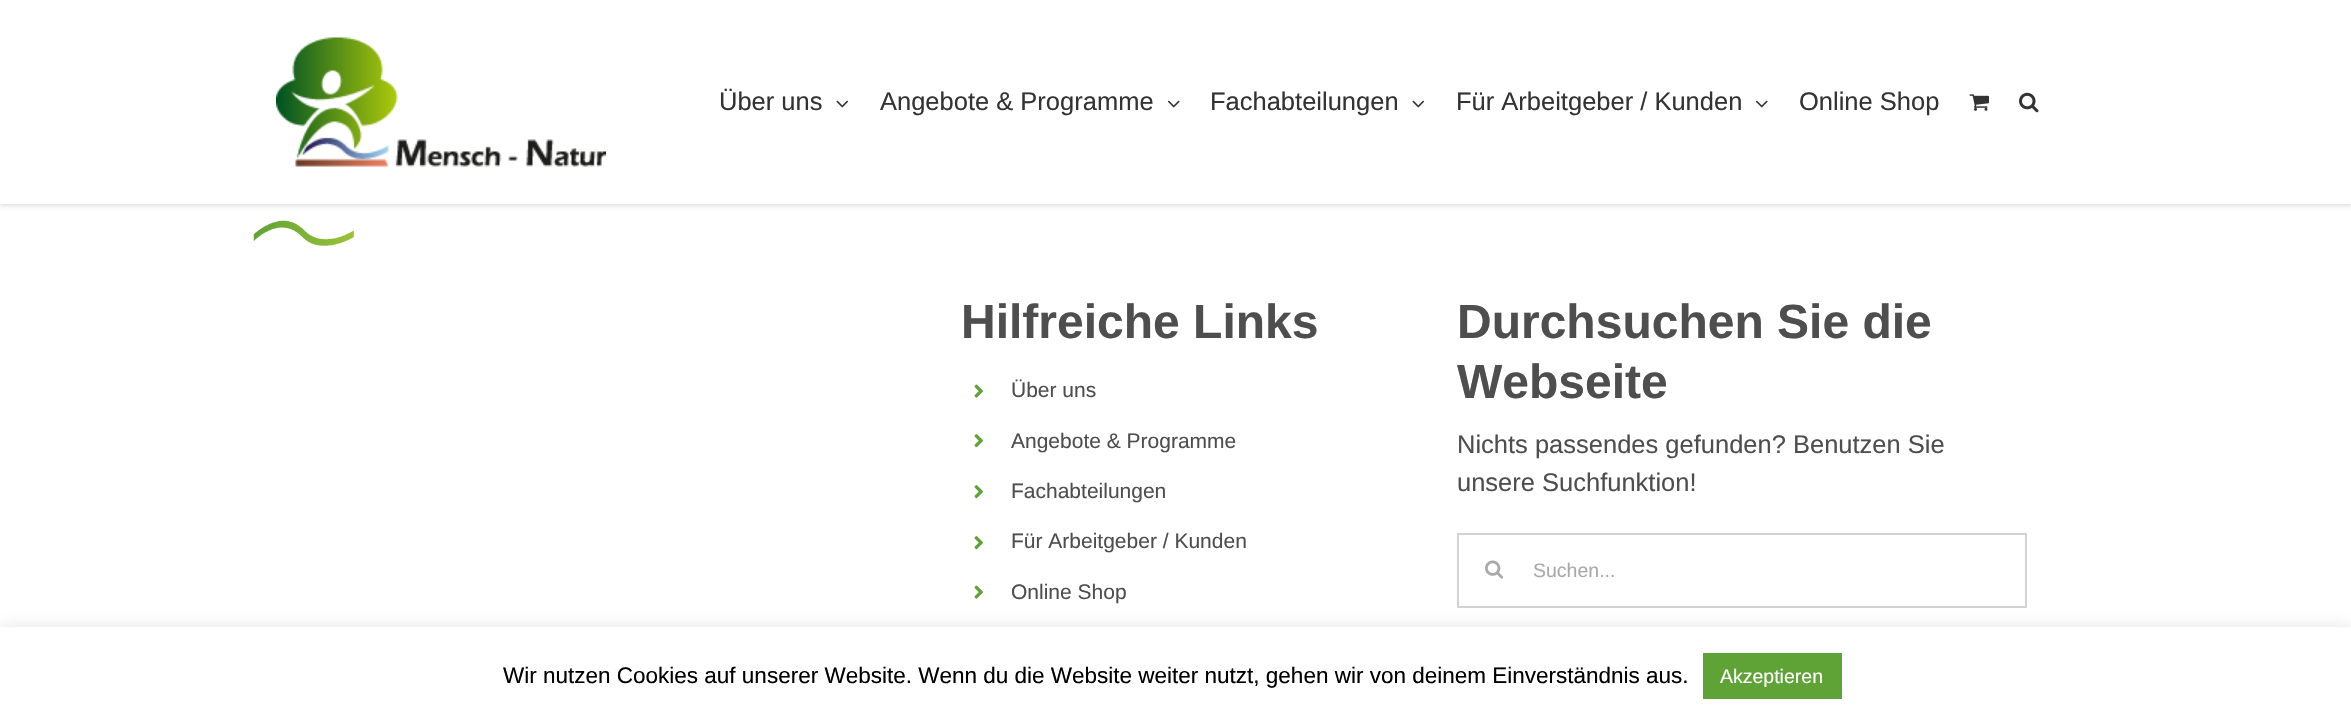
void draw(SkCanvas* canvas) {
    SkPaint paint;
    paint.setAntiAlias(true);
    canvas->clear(0xFFFFFFFF);
    paint.setColor(0x1F000000);
    paint.setMaskFilter(SkMaskFilter::MakeBlur(kNormal_SkBlurStyle, 2));
    canvas->drawRect(SkRect::MakeXYWH(0, 2, 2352, 204), paint);
    paint.setMaskFilter(nullptr);
    paint.setColor(0xFFFFFFFF);
    canvas->drawRect(SkRect::MakeXYWH(0, 0, 2351, 204), paint);
    canvas->drawImageRect(SkImages::DeferredFromEncodedData(SkData::MakeFromFileName("img1.png")), SkRect::MakeXYWH(276, 37, 330, 130), SkSamplingOptions());
    SkFont font1(fontMgr->matchFamilyStyle("Liberation Sans", SkFontStyle::Normal()), 25.5f);
    font1.setSubpixel(true);
    paint.setColor(0xFF333333);
    canvas->drawString("Über uns", 719, 110, font1, paint);
    canvas->drawImageRect(SkImages::DeferredFromEncodedData(SkData::MakeFromFileName("img2.png")), SkRect::MakeXYWH(836, 100, 13, 8), SkSamplingOptions());
    canvas->drawString("Angebote & Programme", 880, 110, font1, paint);
    canvas->drawImageRect(SkImages::DeferredFromEncodedData(SkData::MakeFromFileName("img3.png")), SkRect::MakeXYWH(1168, 100, 12, 8), SkSamplingOptions());
    canvas->drawString("Fachabteilungen", 1210, 110, font1, paint);
    canvas->drawImageRect(SkImages::DeferredFromEncodedData(SkData::MakeFromFileName("img2.png")), SkRect::MakeXYWH(1412, 100, 13, 8), SkSamplingOptions());
    canvas->drawString("Für Arbeitgeber / Kunden", 1456, 110, font1, paint);
    canvas->drawImageRect(SkImages::DeferredFromEncodedData(SkData::MakeFromFileName("img3.png")), SkRect::MakeXYWH(1756, 100, 12, 8), SkSamplingOptions());
    canvas->drawString("Online Shop", 1799, 110, font1, paint);
    canvas->drawImageRect(SkImages::DeferredFromEncodedData(SkData::MakeFromFileName("img4.png")), SkRect::MakeXYWH(1969, 94, 20, 17), SkSamplingOptions());
    canvas->drawImageRect(SkImages::DeferredFromEncodedData(SkData::MakeFromFileName("img5.png")), SkRect::MakeXYWH(2019, 92, 20, 21), SkSamplingOptions());
    canvas->drawImageRect(SkImages::DeferredFromEncodedData(SkData::MakeFromFileName("img6.png")), SkRect::MakeXYWH(253, 220, 101, 26), SkSamplingOptions());
    SkFont font2(fontMgr->matchFamilyStyle("Liberation Sans", SkFontStyle::Bold()), 48);
    font2.setSubpixel(true);
    paint.setColor(0xFF4E4E4E);
    canvas->drawString("Hilfreiche Links", 961, 338, font2, paint);
    canvas->drawImageRect(SkImages::DeferredFromEncodedData(SkData::MakeFromFileName("img7.png")), SkRect::MakeXYWH(974, 384, 9, 14), SkSamplingOptions());
    SkFont font3(fontMgr->matchFamilyStyle("Liberation Sans", SkFontStyle::Normal()), 21);
    font3.setSubpixel(true);
    canvas->drawString("Über uns", 1011, 397, font3, paint);
    canvas->drawImageRect(SkImages::DeferredFromEncodedData(SkData::MakeFromFileName("img8.png")), SkRect::MakeXYWH(974, 434, 9, 14), SkSamplingOptions());
    canvas->drawString("Angebote & Programme", 1011, 448, font3, paint);
    canvas->drawImageRect(SkImages::DeferredFromEncodedData(SkData::MakeFromFileName("img8.png")), SkRect::MakeXYWH(974, 485, 9, 14), SkSamplingOptions());
    canvas->drawString("Fachabteilungen", 1011, 498, font3, paint);
    canvas->drawImageRect(SkImages::DeferredFromEncodedData(SkData::MakeFromFileName("img8.png")), SkRect::MakeXYWH(974, 536, 9, 14), SkSamplingOptions());
    canvas->drawString("Für Arbeitgeber / Kunden", 1011, 548, font3, paint);
    canvas->drawImageRect(SkImages::DeferredFromEncodedData(SkData::MakeFromFileName("img7.png")), SkRect::MakeXYWH(974, 585, 9, 14), SkSamplingOptions());
    canvas->drawString("Online Shop", 1011, 599, font3, paint);
    canvas->drawString("Durchsuchen Sie die", 1457, 338, font2, paint);
    canvas->drawString("Webseite", 1457, 398, font2, paint);
    canvas->drawString("Nichts passendes gefunden? Benutzen Sie", 1457, 453, font1, paint);
    canvas->drawString("unsere Suchfunktion!", 1457, 491, font1, paint);
    paint.setStyle(SkPaint::kStroke_Style);
    paint.setStrokeWidth(2);
    paint.setColor(0xFFD2D2D2);
    canvas->drawRect(SkRect::MakeXYWH(1458, 534, 568, 73), paint);
    canvas->drawImageRect(SkImages::DeferredFromEncodedData(SkData::MakeFromFileName("img9.png")), SkRect::MakeXYWH(1485, 560, 19, 19), SkSamplingOptions());
    SkFont font4(fontMgr->matchFamilyStyle("Liberation Sans", SkFontStyle::Normal()), 19.5f);
    font4.setSubpixel(true);
    paint.setStyle(SkPaint::kFill_Style);
    paint.setColor(0xFFAAA9A9);
    canvas->drawString("Suchen...", 1533, 577, font4, paint);
    paint.setColor(0x4DACABAB);
    paint.setMaskFilter(SkMaskFilter::MakeBlur(kNormal_SkBlurStyle, 7.5f));
    canvas->drawRect(SkRect::MakeXYWH(0, 626, 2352, 97), paint);
    paint.setMaskFilter(nullptr);
    paint.setColor(0xFFFFFFFF);
    canvas->drawRect(SkRect::MakeXYWH(0, 627, 2351, 97), paint);
    SkFont font5(fontMgr->matchFamilyStyle("Liberation Sans", SkFontStyle::Normal()), 22.5f);
    font5.setSubpixel(true);
    paint.setColor(0xFF000000);
    canvas->drawString("Wir nutzen Cookies auf unserer Website. Wenn du die Website weiter nutzt, gehen wir von deinem Einverständnis aus.", 503, 683, font5, paint);
    paint.setColor(0xFF5FA336);
    canvas->drawRect(SkRect::MakeXYWH(1703, 653, 139, 46), paint);
    paint.setColor(0xFFFFFFFF);
    canvas->drawString("Akzeptieren", 1720, 683, font4, paint);
}
